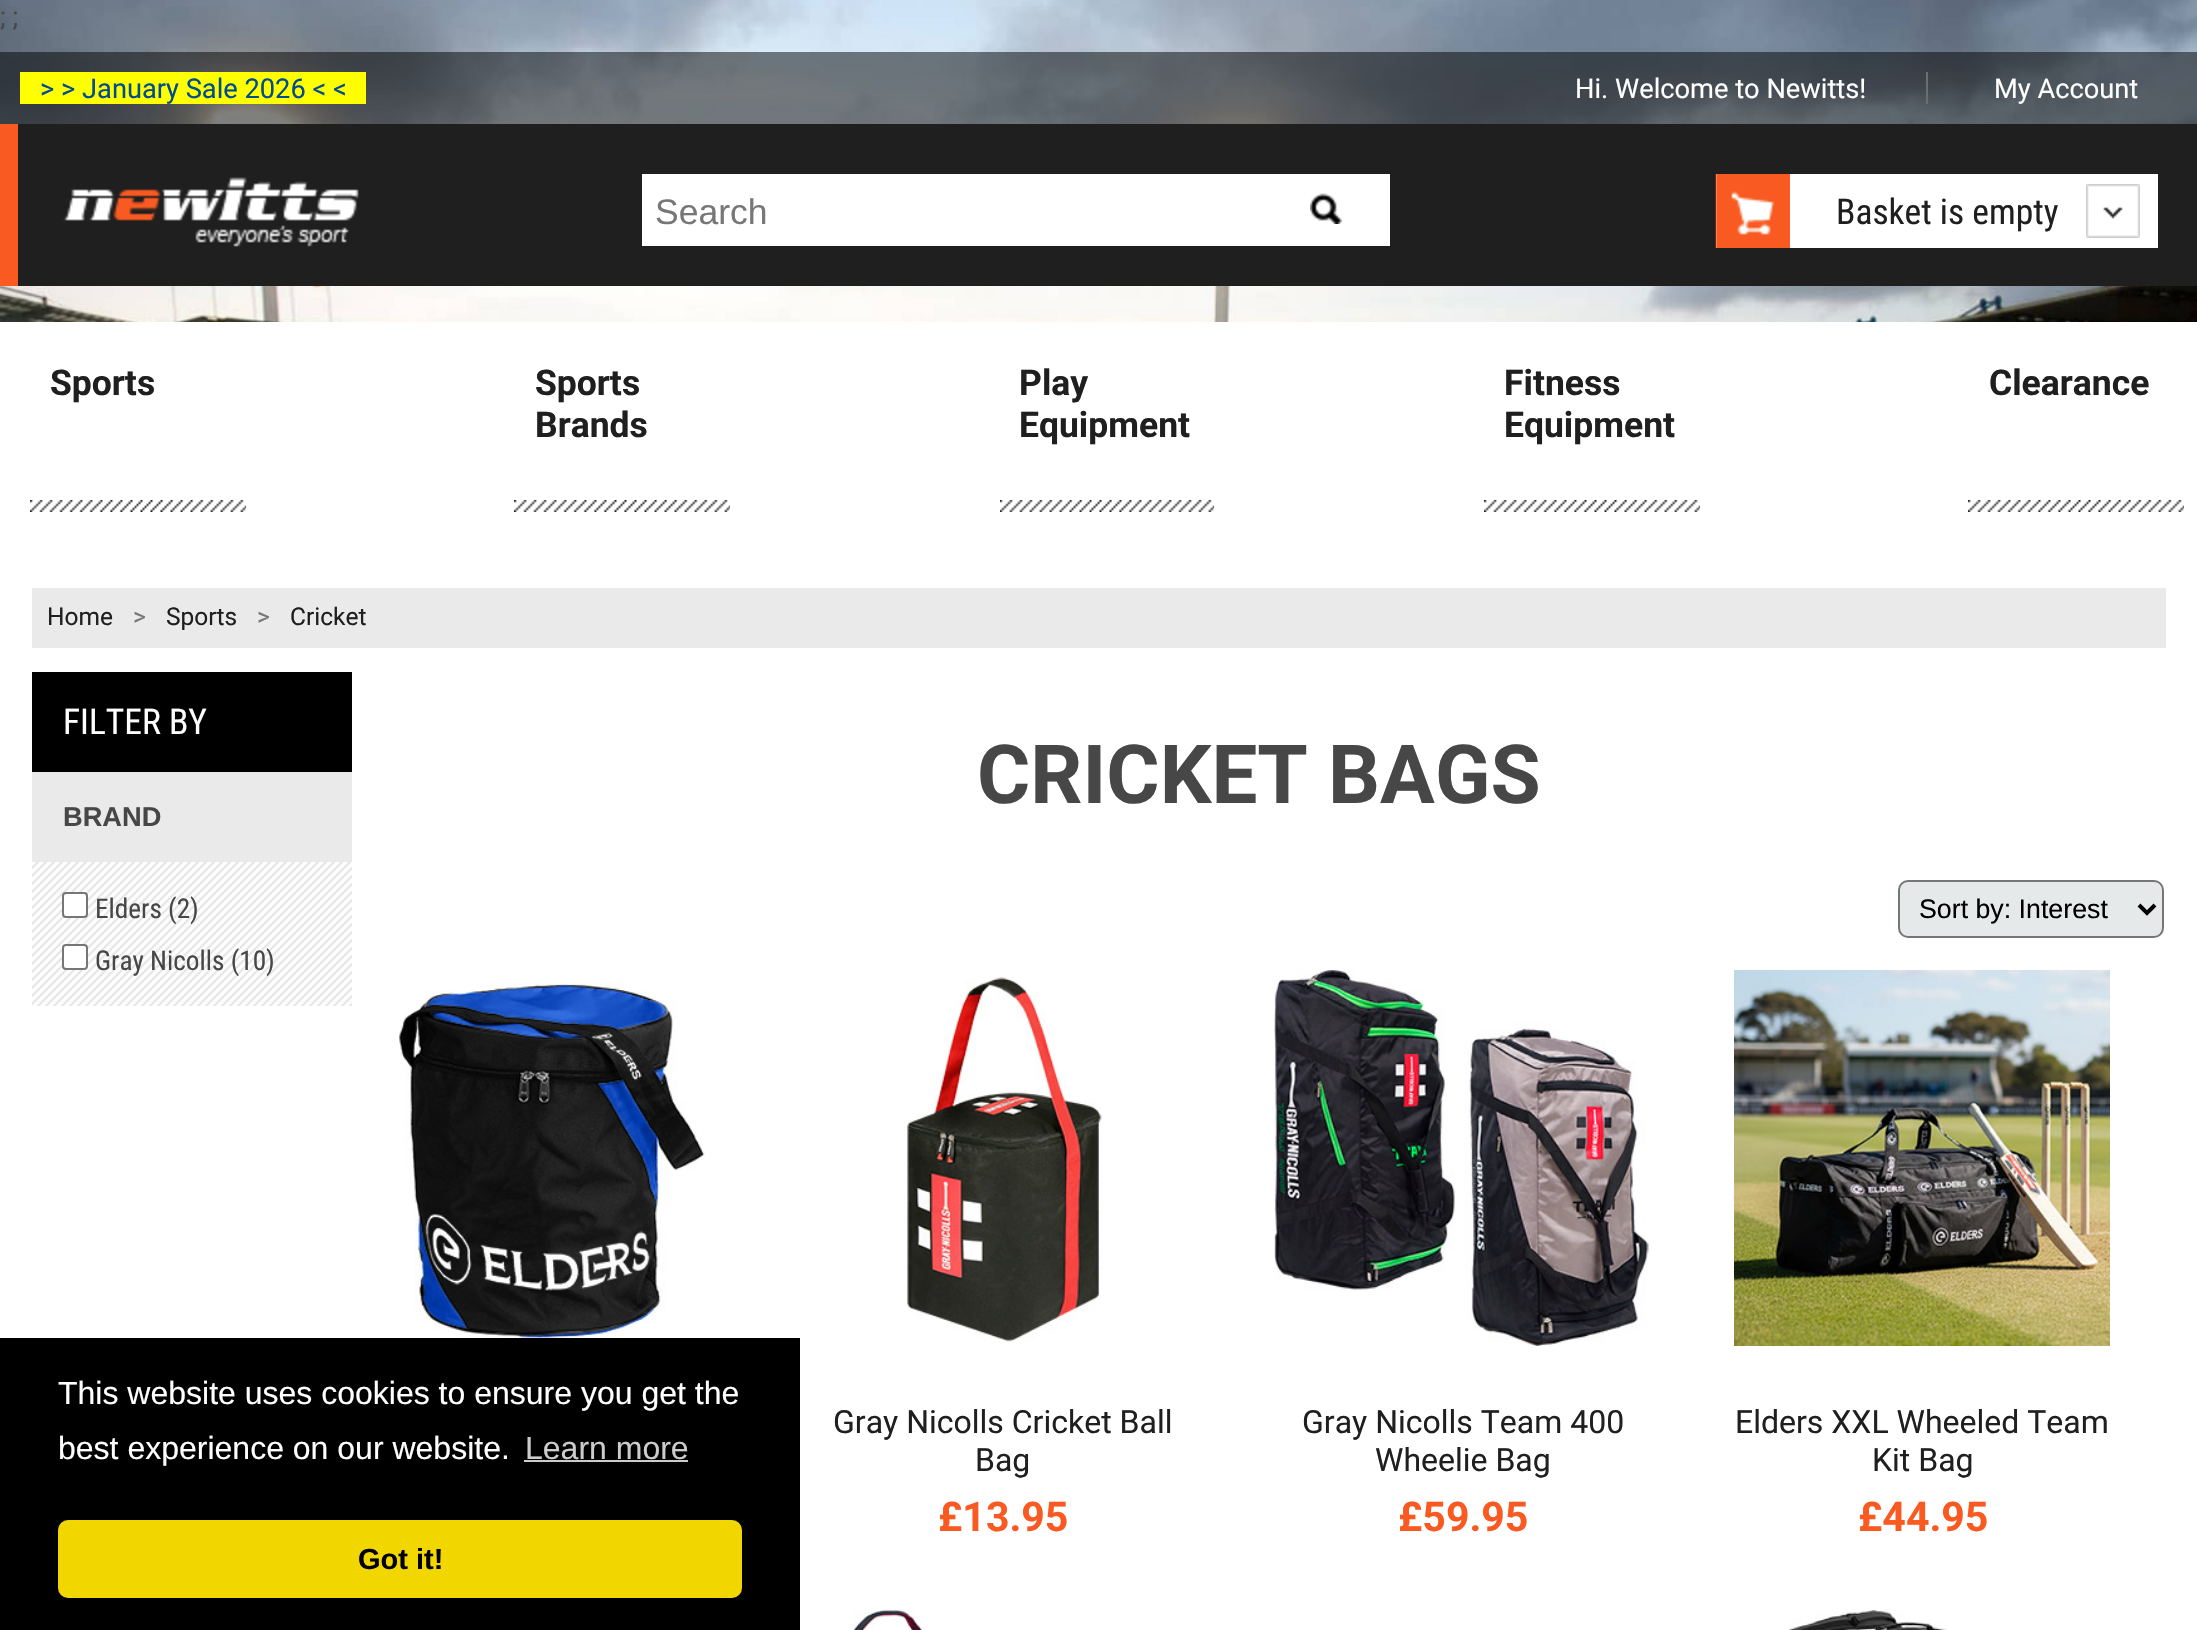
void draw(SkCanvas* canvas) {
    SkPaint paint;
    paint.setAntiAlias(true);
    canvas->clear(0xFFFFFFFF);
    canvas->drawImageRect(SkImages::DeferredFromEncodedData(SkData::MakeFromFileName("img1.png")), SkRect::MakeXYWH(0, 0, 2197, 322), SkSamplingOptions());
    SkFont font1(fontMgr->matchFamilyStyle("Roboto", SkFontStyle::Normal()), 27.25f);
    font1.setSubpixel(true);
    paint.setColor(0xFF474747);
    canvas->drawString("; ;", 0, 26, font1, paint);
    paint.setColor(0x80000000);
    canvas->drawRect(SkRect::MakeXYWH(0, 52, 2197, 72), paint);
    paint.setColor(0xFFFFFF00);
    canvas->drawRect(SkRect::MakeXYWH(20, 72, 346, 32), paint);
    paint.setColor(0xFF004B91);
    canvas->drawString("> > January Sale 2026 < <", 40, 98, font1, paint);
    paint.setColor(0xFF677173);
    canvas->drawRect(SkRect::MakeXYWH(1926, 72, 2, 32), paint);
    paint.setColor(0xFFFFFFFF);
    canvas->drawString("Hi. Welcome to Newitts!", 1575, 98, font1, paint);
    canvas->drawString("My Account", 1994, 98, font1, paint);
    paint.setColor(0xFF1F1F1F);
    canvas->drawRect(SkRect::MakeXYWH(18, 124, 2179, 162), paint);
    paint.setColor(0xFFF95A21);
    canvas->drawRect(SkRect::MakeXYWH(0, 124, 18, 162), paint);
    canvas->drawImageRect(SkImages::DeferredFromEncodedData(SkData::MakeFromFileName("img2.png")), SkRect::MakeXYWH(63, 177, 296, 70), SkSamplingOptions());
    paint.setColor(0xFFFFFFFF);
    canvas->drawRect(SkRect::MakeXYWH(642, 174, 748, 72), paint);
    SkFont font2(fontMgr->matchFamilyStyle("Liberation Sans", SkFontStyle::Normal()), 35.5f);
    font2.setSubpixel(true);
    paint.setColor(0xFF777777);
    canvas->drawString("Search", 655, 224, font2, paint);
    canvas->drawImageRect(SkImages::DeferredFromEncodedData(SkData::MakeFromFileName("img3.png")), SkRect::MakeXYWH(1310, 193, 32, 31), SkSamplingOptions());
    paint.setColor(0xFFFFFFFF);
    canvas->drawRect(SkRect::MakeXYWH(1716, 174, 442, 74), paint);
    canvas->drawImageRect(SkImages::DeferredFromEncodedData(SkData::MakeFromFileName("img4.png")), SkRect::MakeXYWH(1736, 192, 32, 42), SkSamplingOptions());
    canvas->drawImageRect(SkImages::DeferredFromEncodedData(SkData::MakeFromFileName("img5.png")), SkRect::MakeXYWH(1715, 174, 75, 74), SkSamplingOptions());
    canvas->drawImageRect(SkImages::DeferredFromEncodedData(SkData::MakeFromFileName("img6.png")), SkRect::MakeXYWH(2086, 184, 54, 54), SkSamplingOptions());
    SkFont font3(fontMgr->matchFamilyStyle("Roboto Condensed", SkFontStyle::Normal()), 35.5f);
    font3.setSubpixel(true);
    paint.setColor(0xFF1F1F1F);
    canvas->drawString("Basket is empty", 1836, 224, font3, paint);
    canvas->drawImageRect(SkImages::DeferredFromEncodedData(SkData::MakeFromFileName("img7.png")), SkRect::MakeXYWH(30, 500, 216, 12), SkSamplingOptions());
    SkFont font4(fontMgr->matchFamilyStyle("Roboto", SkFontStyle::Bold()), 35.5f);
    font4.setSubpixel(true);
    canvas->drawString("Sports", 50, 395, font4, paint);
    canvas->drawImageRect(SkImages::DeferredFromEncodedData(SkData::MakeFromFileName("img7.png")), SkRect::MakeXYWH(514, 500, 216, 12), SkSamplingOptions());
    canvas->drawString("Sports", 535, 395, font4, paint);
    canvas->drawString("Brands", 535, 437, font4, paint);
    canvas->drawImageRect(SkImages::DeferredFromEncodedData(SkData::MakeFromFileName("img8.png")), SkRect::MakeXYWH(1000, 500, 214, 12), SkSamplingOptions());
    canvas->drawString("Play", 1019, 395, font4, paint);
    canvas->drawString("Equipment", 1019, 437, font4, paint);
    canvas->drawImageRect(SkImages::DeferredFromEncodedData(SkData::MakeFromFileName("img7.png")), SkRect::MakeXYWH(1484, 500, 216, 12), SkSamplingOptions());
    canvas->drawString("Fitness", 1504, 395, font4, paint);
    canvas->drawString("Equipment", 1504, 437, font4, paint);
    canvas->drawImageRect(SkImages::DeferredFromEncodedData(SkData::MakeFromFileName("img7.png")), SkRect::MakeXYWH(1968, 500, 216, 12), SkSamplingOptions());
    canvas->drawString("Clearance", 1989, 395, font4, paint);
    paint.setColor(0xFFEAEAEA);
    canvas->drawRect(SkRect::MakeXYWH(32, 588, 2134, 60), paint);
    SkFont font5(fontMgr->matchFamilyStyle("Roboto", SkFontStyle::Normal()), 24.5f);
    font5.setSubpixel(true);
    paint.setColor(0xFF1F1F1F);
    canvas->drawString("Home", 47, 625, font5, paint);
    paint.setColor(0xFF777777);
    canvas->drawString(">", 133, 625, font5, paint);
    paint.setColor(0xFF1F1F1F);
    canvas->drawString("Sports", 166, 625, font5, paint);
    paint.setColor(0xFF777777);
    canvas->drawString(">", 257, 625, font5, paint);
    paint.setColor(0xFF1F1F1F);
    canvas->drawString("Cricket", 290, 625, font5, paint);
    paint.setColor(0xFFEAEAEA);
    canvas->drawRect(SkRect::MakeXYWH(32, 772, 320, 90), paint);
    paint.setColor(0xFF000000);
    canvas->drawRect(SkRect::MakeXYWH(32, 672, 320, 100), paint);
    paint.setColor(0xFFFFFFFF);
    canvas->drawString("FILTER BY", 63, 734, font3, paint);
    SkFont font6(fontMgr->matchFamilyStyle("Liberation Sans", SkFontStyle::Bold()), 27.25f);
    font6.setSubpixel(true);
    paint.setColor(0xFF474747);
    canvas->drawString("BRAND", 63, 826, font6, paint);
    canvas->drawImageRect(SkImages::DeferredFromEncodedData(SkData::MakeFromFileName("img9.png")), SkRect::MakeXYWH(32, 862, 320, 144), SkSamplingOptions());
    paint.setColor(0xFFFFFFFF);
    canvas->drawRoundRect(SkRect::MakeXYWH(63, 893, 24, 24), 3, 3, paint);
    paint.setStyle(SkPaint::kStroke_Style);
    paint.setStrokeWidth(2);
    paint.setColor(0xFF767676);
    canvas->drawRoundRect(SkRect::MakeXYWH(63, 893, 24, 24), 3, 3, paint);
    SkFont font7(fontMgr->matchFamilyStyle("Roboto Condensed", SkFontStyle::Normal()), 27.25f);
    font7.setSubpixel(true);
    paint.setStyle(SkPaint::kFill_Style);
    paint.setColor(0xFF474747);
    canvas->drawString("Elders (2)", 95, 918, font7, paint);
    paint.setColor(0xFFFFFFFF);
    canvas->drawRoundRect(SkRect::MakeXYWH(63, 945, 24, 24), 3, 3, paint);
    paint.setStyle(SkPaint::kStroke_Style);
    paint.setColor(0xFF767676);
    canvas->drawRoundRect(SkRect::MakeXYWH(63, 945, 24, 24), 3, 3, paint);
    paint.setStyle(SkPaint::kFill_Style);
    paint.setColor(0xFF474747);
    canvas->drawString("Gray Nicolls (10)", 95, 970, font7, paint);
    SkFont font8(fontMgr->matchFamilyStyle("Roboto", SkFontStyle::Bold()), 81.5f);
    font8.setSubpixel(true);
    canvas->drawString("CRICKET BAGS", 977, 803, font8, paint);
    paint.setColor(0xFFE6E9EA);
    canvas->drawRoundRect(SkRect::MakeXYWH(1899, 881, 264, 56), 9, 9, paint);
    paint.setStyle(SkPaint::kStroke_Style);
    paint.setColor(0xFF767676);
    canvas->drawRoundRect(SkRect::MakeXYWH(1899, 881, 264, 56), 9, 9, paint);
    paint.setStrokeWidth(4);
    paint.setColor(0xFF000000);
    canvas->drawPath(SkPathBuilder().moveTo(2139, 905).lineTo(2147, 913).lineTo(2155, 905).detach(), paint);
    SkFont font9(fontMgr->matchFamilyStyle("Liberation Sans", SkFontStyle::Normal()), 26.75f);
    font9.setSubpixel(true);
    paint.setStyle(SkPaint::kFill_Style);
    canvas->drawString("Sort by: Interest", 1919, 918, font9, paint);
    canvas->drawImageRect(SkImages::DeferredFromEncodedData(SkData::MakeFromFileName("img10.png")), SkRect::MakeXYWH(399, 980, 306, 358), SkSamplingOptions());
    canvas->drawImageRect(SkImages::DeferredFromEncodedData(SkData::MakeFromFileName("img11.png")), SkRect::MakeXYWH(907, 977, 195, 365), SkSamplingOptions());
    SkFont font10(fontMgr->matchFamilyStyle("Roboto", SkFontStyle::Normal()), 32);
    font10.setSubpixel(true);
    paint.setColor(0xFF1F1F1F);
    canvas->drawString("Gray Nicolls Cricket Ball", 833, 1433, font10, paint);
    canvas->drawString("Bag", 975, 1471, font10, paint);
    SkFont font11(fontMgr->matchFamilyStyle("Roboto", SkFontStyle::Bold()), 41);
    font11.setSubpixel(true);
    paint.setColor(0xFFF95A21);
    canvas->drawString("£13.95", 938, 1531, font11, paint);
    canvas->drawImageRect(SkImages::DeferredFromEncodedData(SkData::MakeFromFileName("img12.png")), SkRect::MakeXYWH(1274, 970, 376, 376), SkSamplingOptions());
    paint.setColor(0xFF1F1F1F);
    canvas->drawString("Gray Nicolls Team 400", 1302, 1433, font10, paint);
    canvas->drawString("Wheelie Bag", 1375, 1471, font10, paint);
    paint.setColor(0xFFF95A21);
    canvas->drawString("£59.95", 1398, 1531, font11, paint);
    canvas->drawImageRect(SkImages::DeferredFromEncodedData(SkData::MakeFromFileName("img13.png")), SkRect::MakeXYWH(1734, 970, 376, 376), SkSamplingOptions());
    paint.setColor(0xFF1F1F1F);
    canvas->drawString("Elders XXL Wheeled Team", 1735, 1433, font10, paint);
    canvas->drawString("Kit Bag", 1872, 1471, font10, paint);
    paint.setColor(0xFFF95A21);
    canvas->drawString("£44.95", 1858, 1531, font11, paint);
    canvas->drawImageRect(SkImages::DeferredFromEncodedData(SkData::MakeFromFileName("img14.png")), SkRect::MakeXYWH(853, 1610, 70, 20), SkSamplingOptions());
    canvas->drawImageRect(SkImages::DeferredFromEncodedData(SkData::MakeFromFileName("img15.png")), SkRect::MakeXYWH(1789, 1610, 158, 20), SkSamplingOptions());
    paint.setColor(0xFF000000);
    canvas->drawRect(SkRect::MakeXYWH(0, 1338, 800, 292), paint);
    SkFont font12(fontMgr->matchFamilyStyle("Liberation Sans", SkFontStyle::Normal()), 32);
    font12.setSubpixel(true);
    paint.setColor(0xFFFFFFFF);
    canvas->drawString("This website uses cookies to ensure you get the", 58, 1404, font12, paint);
    canvas->drawString("best experience on our website.", 58, 1459, font12, paint);
    paint.setColor(0xFFCCCCCC);
    canvas->drawString("Learn more", 525, 1459, font12, paint);
    canvas->drawRect(SkRect::MakeXYWH(524, 1460, 164, 2), paint);
    paint.setColor(0xFFF1D600);
    canvas->drawRoundRect(SkRect::MakeXYWH(58, 1520, 684, 78), 10, 10, paint);
    SkFont font13(fontMgr->matchFamilyStyle("Liberation Sans", SkFontStyle::Bold()), 29);
    font13.setSubpixel(true);
    paint.setColor(0xFF000000);
    canvas->drawString("Got it!", 358, 1569, font13, paint);
}
